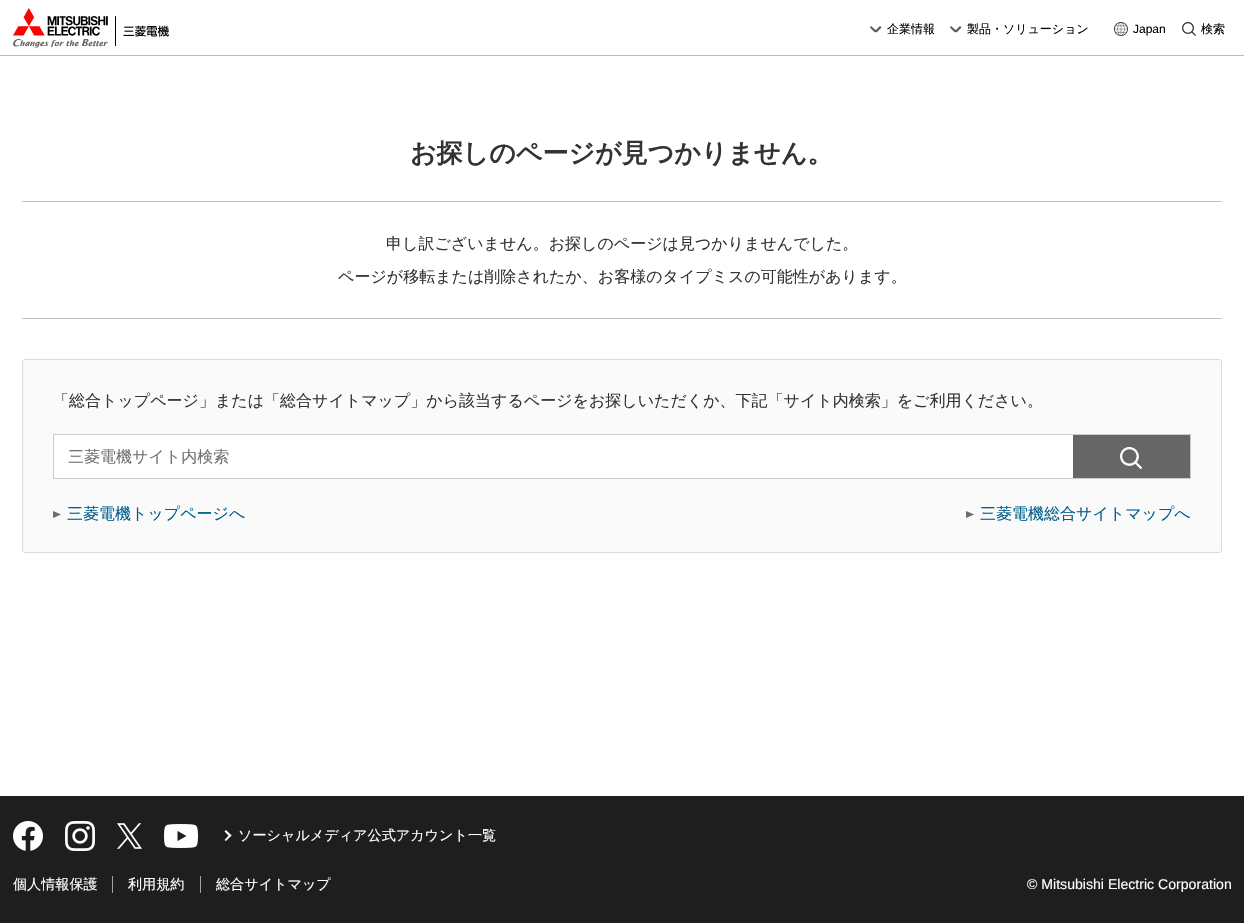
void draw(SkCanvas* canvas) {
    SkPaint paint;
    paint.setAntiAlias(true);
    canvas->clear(0xFFFFFFFF);
    paint.setColor(0xFFBBBBBB);
    canvas->drawRect(SkRect::MakeXYWH(0, 55, 1244, 1), paint);
    canvas->drawImageRect(SkImages::DeferredFromEncodedData(SkData::MakeFromFileName("img1.png")), SkRect::MakeXYWH(13, 8, 156, 40), SkSamplingOptions());
    paint.setColor(0xFF555555);
    canvas->drawPath(SkPathBuilder().moveTo(871, 26).lineTo(876.5f, 31).lineTo(875, 32.5f).lineTo(870, 27.5f).close().detach(), paint);
    canvas->drawPath(SkPathBuilder().moveTo(875, 31).lineTo(880, 26).lineTo(881.5f, 27.5f).lineTo(876.5f, 32.5f).close().detach(), paint);
    SkFont font1(fontMgr->matchFamilyStyle("WenQuanYi Zen Hei", SkFontStyle(500, SkFontStyle::kNormal_Width, SkFontStyle::kUpright_Slant)), 12);
    font1.setSubpixel(true);
    paint.setColor(0xFF000000);
    canvas->drawString("企業情報", 887, 33, font1, paint);
    paint.setColor(0xFF555555);
    canvas->drawPath(SkPathBuilder().moveTo(951, 26).lineTo(956.5f, 31).lineTo(955, 32.5f).lineTo(950, 27.5f).close().detach(), paint);
    canvas->drawPath(SkPathBuilder().moveTo(955, 31).lineTo(960, 26).lineTo(961.5f, 27.5f).lineTo(956.5f, 32.5f).close().detach(), paint);
    paint.setColor(0xFF000000);
    canvas->drawString("製品・ソリューション", 967, 33, font1, paint);
    canvas->drawImageRect(SkImages::DeferredFromEncodedData(SkData::MakeFromFileName("img2.png")), SkRect::MakeXYWH(1114, 22, 14, 14), SkSamplingOptions());
    SkFont font2(fontMgr->matchFamilyStyle("Liberation Sans", SkFontStyle::Normal()), 12);
    font2.setSubpixel(true);
    canvas->drawString("Japan", 1133, 33, font2, paint);
    canvas->drawImageRect(SkImages::DeferredFromEncodedData(SkData::MakeFromFileName("img3.png")), SkRect::MakeXYWH(1182, 22, 14, 14), SkSamplingOptions());
    canvas->drawString("検索", 1201, 33, font1, paint);
    SkFont font3(fontMgr->matchFamilyStyle("WenQuanYi Zen Hei", SkFontStyle::Bold()), 26);
    font3.setSubpixel(true);
    paint.setColor(0xFF333333);
    canvas->drawString("お探しのページが見つかりません。", 410, 162, font3, paint);
    paint.setColor(0xFFC3C3C3);
    canvas->drawRect(SkRect::MakeXYWH(22, 201, 1200, 1), paint);
    canvas->drawRect(SkRect::MakeXYWH(22, 318, 1200, 1), paint);
    SkFont font4(fontMgr->matchFamilyStyle("WenQuanYi Zen Hei", SkFontStyle(500, SkFontStyle::kNormal_Width, SkFontStyle::kUpright_Slant)), 16);
    font4.setSubpixel(true);
    paint.setColor(0xFF333333);
    canvas->drawString("申し訳ございません。お探しのページは見つかりませんでした。", 386, 249, font4, paint);
    canvas->drawString("ページが移転または削除されたか、お客様のタイプミスの可能性があります。", 338, 282, font4, paint);
    paint.setColor(0xFFFAFAFA);
    canvas->drawRoundRect(SkRect::MakeXYWH(22.5f, 359.5f, 1199, 193), 2.5f, 2.5f, paint);
    paint.setStyle(SkPaint::kStroke_Style);
    paint.setStrokeWidth(1);
    paint.setColor(0xFFD9D9D9);
    canvas->drawRoundRect(SkRect::MakeXYWH(22.5f, 359.5f, 1199, 193), 2.5f, 2.5f, paint);
    paint.setStyle(SkPaint::kFill_Style);
    paint.setColor(0xFF333333);
    canvas->drawString("「総合トップページ」または「総合サイトマップ」から該当するページをお探しいただくか、下記「サイト内検索」をご利用ください。", 53, 406, font4, paint);
    paint.setStyle(SkPaint::kStroke_Style);
    paint.setColor(0xFFCBCBCB);
    canvas->drawRect(SkRect::MakeXYWH(53.5f, 434.5f, 1137, 44), paint);
    paint.setStyle(SkPaint::kFill_Style);
    paint.setColor(0xFFFFFFFF);
    canvas->drawRect(SkRect::MakeXYWH(54, 435, 1019, 43), paint);
    paint.setColor(0xFF727272);
    canvas->drawString("三菱電機サイト内検索", 68, 462, font4, paint);
    paint.setColor(0xFF666666);
    canvas->drawRect(SkRect::MakeXYWH(1073, 435, 117, 43), paint);
    canvas->drawImageRect(SkImages::DeferredFromEncodedData(SkData::MakeFromFileName("img4.png")), SkRect::MakeXYWH(1120, 447, 22, 22), SkSamplingOptions());
    canvas->drawImageRect(SkImages::DeferredFromEncodedData(SkData::MakeFromFileName("img5.png")), SkRect::MakeXYWH(53, 511, 8, 7), SkSamplingOptions());
    paint.setColor(0xFF005E8C);
    canvas->drawString("三菱電機トップページへ", 67, 519, font4, paint);
    canvas->drawImageRect(SkImages::DeferredFromEncodedData(SkData::MakeFromFileName("img5.png")), SkRect::MakeXYWH(966, 511, 8, 7), SkSamplingOptions());
    canvas->drawString("三菱電機総合サイトマップへ", 980, 519, font4, paint);
    paint.setColor(0xFF1E1E1E);
    canvas->drawRect(SkRect::MakeXYWH(0, 796, 1244, 127), paint);
    canvas->drawImageRect(SkImages::DeferredFromEncodedData(SkData::MakeFromFileName("img6.png")), SkRect::MakeXYWH(13, 821, 30, 30), SkSamplingOptions());
    canvas->drawImageRect(SkImages::DeferredFromEncodedData(SkData::MakeFromFileName("img7.png")), SkRect::MakeXYWH(65, 821, 30, 30), SkSamplingOptions());
    canvas->drawImageRect(SkImages::DeferredFromEncodedData(SkData::MakeFromFileName("img8.png")), SkRect::MakeXYWH(117, 823, 25, 26), SkSamplingOptions());
    canvas->drawImageRect(SkImages::DeferredFromEncodedData(SkData::MakeFromFileName("img9.png")), SkRect::MakeXYWH(164, 824, 34, 24), SkSamplingOptions());
    paint.setColor(0xFFFFFFFF);
    canvas->drawPath(SkPathBuilder().moveTo(226, 830).lineTo(231.5f, 835.5f).lineTo(230, 837).lineTo(224.5f, 831.5f).close().detach(), paint);
    canvas->drawPath(SkPathBuilder().moveTo(230, 834).lineTo(231.5f, 835.5f).lineTo(226, 841).lineTo(224.5f, 840).close().detach(), paint);
    SkFont font5(fontMgr->matchFamilyStyle("WenQuanYi Zen Hei", SkFontStyle(500, SkFontStyle::kNormal_Width, SkFontStyle::kUpright_Slant)), 14.1f);
    font5.setSubpixel(true);
    canvas->drawString("ソーシャルメディア公式アカウント一覧", 238, 840, font5, paint);
    canvas->drawString("個人情報保護", 13, 889, font5, paint);
    paint.setColor(0xFFA2A2A2);
    canvas->drawRect(SkRect::MakeXYWH(112, 876, 1, 17), paint);
    paint.setColor(0xFFFFFFFF);
    canvas->drawString("利用規約", 128, 889, font5, paint);
    paint.setColor(0xFFA2A2A2);
    canvas->drawRect(SkRect::MakeXYWH(200, 876, 1, 17), paint);
    paint.setColor(0xFFFFFFFF);
    canvas->drawString("総合サイトマップ", 216, 889, font5, paint);
    SkFont font6(fontMgr->matchFamilyStyle("Liberation Sans", SkFontStyle::Normal()), 14.1f);
    font6.setSubpixel(true);
    canvas->drawString("© Mitsubishi Electric Corporation", 1027, 889, font6, paint);
}
